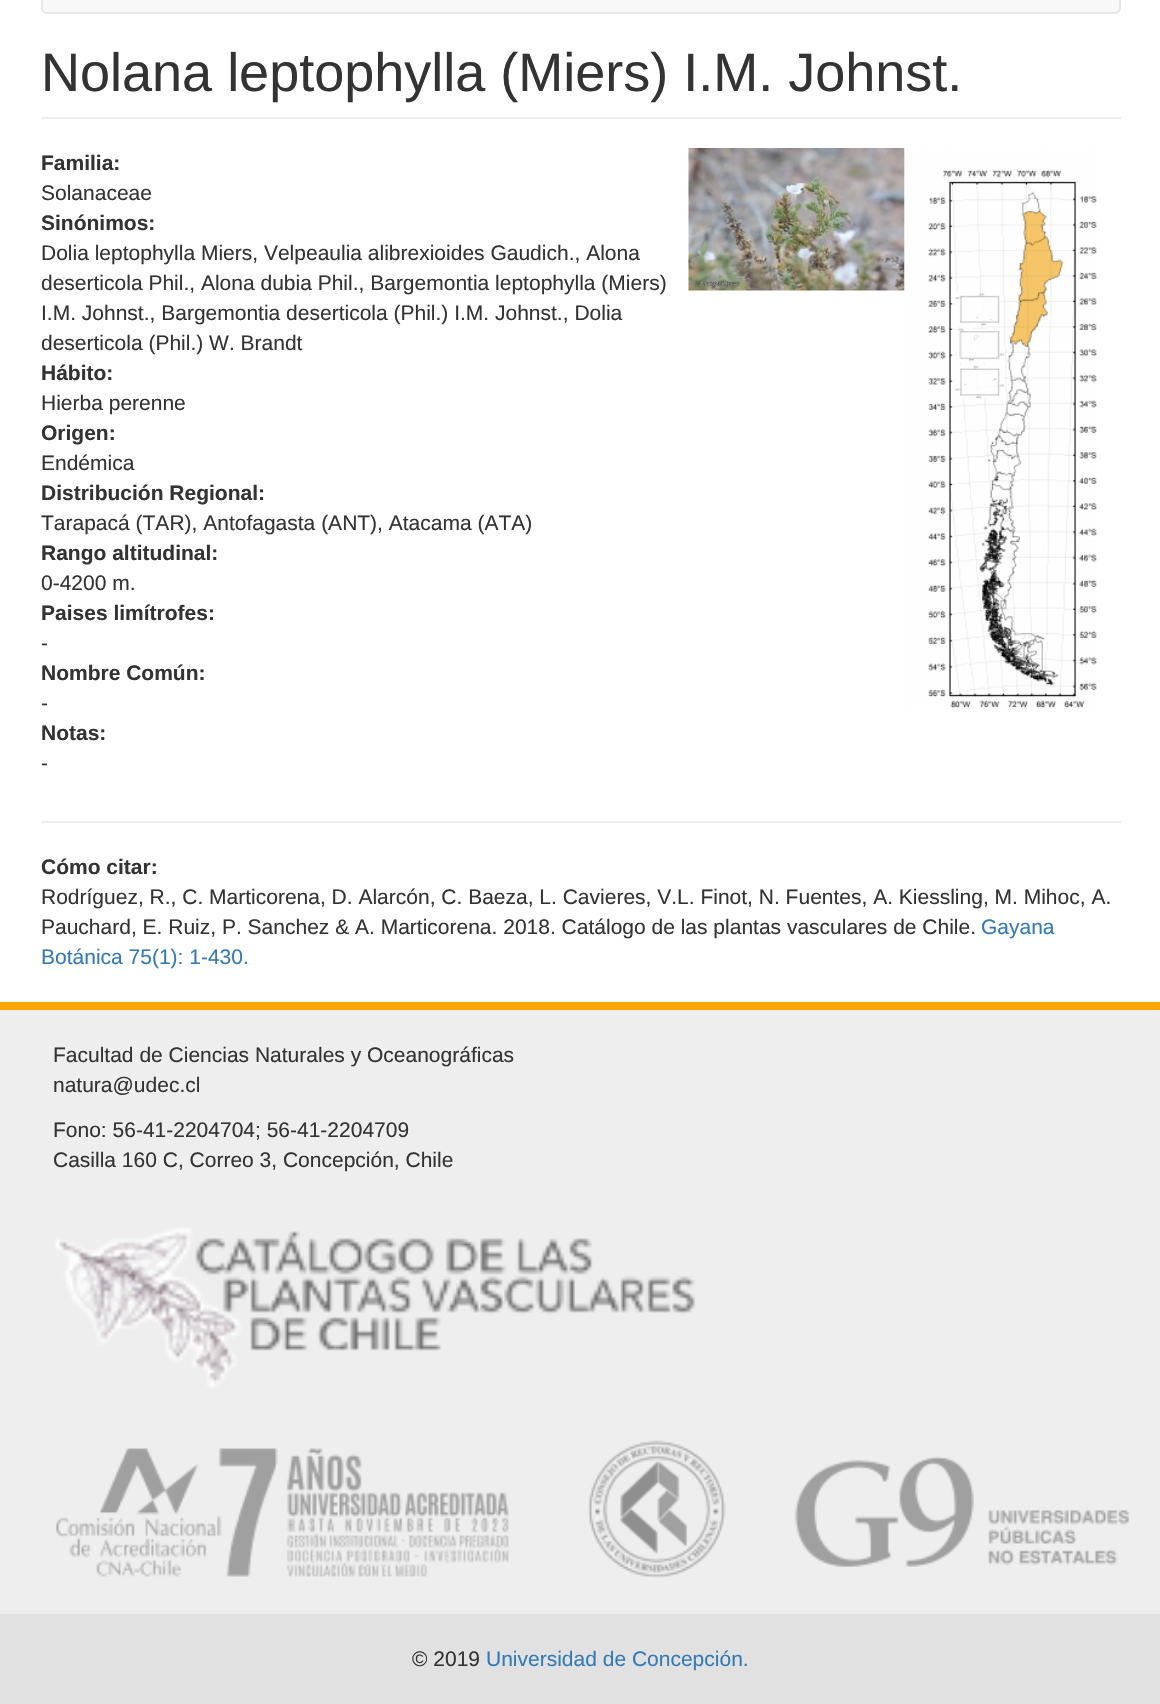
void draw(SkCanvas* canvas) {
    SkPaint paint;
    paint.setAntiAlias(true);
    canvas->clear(0xFFFFFFFF);
    paint.setColor(0xFFF8F8F8);
    canvas->drawRoundRect(SkRect::MakeXYWH(42, -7, 1078, 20), 5, 5, paint);
    paint.setStyle(SkPaint::kStroke_Style);
    paint.setStrokeWidth(2);
    paint.setColor(0xFFE7E7E7);
    canvas->drawRoundRect(SkRect::MakeXYWH(42, -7, 1078, 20), 5, 5, paint);
    paint.setStyle(SkPaint::kFill_Style);
    paint.setColor(0xFFEEEEEE);
    canvas->drawRect(SkRect::MakeXYWH(41, 117, 1080, 2), paint);
    SkFont font1(fontMgr->matchFamilyStyle("Liberation Sans", SkFontStyle::Normal()), 54);
    font1.setSubpixel(true);
    paint.setColor(0xFF333333);
    canvas->drawString("Nolana leptophylla (Miers) I.M. Johnst.", 41, 91, font1, paint);
    SkFont font2(fontMgr->matchFamilyStyle("Liberation Sans", SkFontStyle::Bold()), 21);
    font2.setSubpixel(true);
    canvas->drawString("Familia:", 41, 170, font2, paint);
    SkFont font3(fontMgr->matchFamilyStyle("Liberation Sans", SkFontStyle::Normal()), 21);
    font3.setSubpixel(true);
    canvas->drawString("Solanaceae", 41, 200, font3, paint);
    canvas->drawString("Sinónimos:", 41, 230, font2, paint);
    canvas->drawString("Dolia leptophylla Miers, Velpeaulia alibrexioides Gaudich., Alona", 41, 260, font3, paint);
    canvas->drawString("deserticola Phil., Alona dubia Phil., Bargemontia leptophylla (Miers)", 41, 290, font3, paint);
    canvas->drawString("I.M. Johnst., Bargemontia deserticola (Phil.) I.M. Johnst., Dolia", 41, 320, font3, paint);
    canvas->drawString("deserticola (Phil.) W. Brandt", 41, 350, font3, paint);
    canvas->drawString("Hábito:", 41, 380, font2, paint);
    canvas->drawString("Hierba perenne", 41, 410, font3, paint);
    canvas->drawString("Origen:", 41, 440, font2, paint);
    canvas->drawString("Endémica", 41, 470, font3, paint);
    canvas->drawString("Distribución Regional:", 41, 500, font2, paint);
    canvas->drawString("Tarapacá (TAR), Antofagasta (ANT), Atacama (ATA)", 41, 530, font3, paint);
    canvas->drawString("Rango altitudinal:", 41, 560, font2, paint);
    canvas->drawString("0-4200 m.", 41, 590, font3, paint);
    canvas->drawString("Paises limítrofes:", 41, 620, font2, paint);
    canvas->drawString("-", 41, 650, font3, paint);
    canvas->drawString("Nombre Común:", 41, 680, font2, paint);
    canvas->drawString("-", 41, 710, font3, paint);
    canvas->drawString("Notas:", 41, 740, font2, paint);
    canvas->drawString("-", 41, 770, font3, paint);
    canvas->drawImageRect(SkImages::DeferredFromEncodedData(SkData::MakeFromFileName("img1.png")), SkRect::MakeXYWH(688, 148, 217, 143), SkSamplingOptions());
    canvas->drawImageRect(SkImages::DeferredFromEncodedData(SkData::MakeFromFileName("img2.png")), SkRect::MakeXYWH(904, 148, 193, 561), SkSamplingOptions());
    paint.setColor(0xFFEEEEEE);
    canvas->drawRect(SkRect::MakeXYWH(41, 821, 1080, 2), paint);
    paint.setColor(0xFF333333);
    canvas->drawString("Cómo citar:", 41, 874, font2, paint);
    canvas->drawString("Rodríguez, R., C. Marticorena, D. Alarcón, C. Baeza, L. Cavieres, V.L. Finot, N. Fuentes, A. Kiessling, M. Mihoc, A.", 41, 904, font3, paint);
    canvas->drawString("Pauchard, E. Ruiz, P. Sanchez & A. Marticorena. 2018. Catálogo de las plantas vasculares de Chile.", 41, 934, font3, paint);
    paint.setColor(0xFF337AB7);
    canvas->drawString("Gayana", 981, 934, font3, paint);
    canvas->drawString("Botánica 75(1): 1-430.", 41, 964, font3, paint);
    paint.setColor(0xFFFFA401);
    canvas->drawRect(SkRect::MakeXYWH(0, 1002, 1160, 8), paint);
    paint.setColor(0xFFEEEEEE);
    canvas->drawRect(SkRect::MakeXYWH(0, 1010, 1160, 604), paint);
    paint.setColor(0xFF333333);
    canvas->drawString("Facultad de Ciencias Naturales y Oceanográficas", 53, 1062, font3, paint);
    canvas->drawString("natura@udec.cl", 53, 1092, font3, paint);
    canvas->drawString("Fono: 56-41-2204704; 56-41-2204709", 53, 1137, font3, paint);
    canvas->drawString("Casilla 160 C, Correo 3, Concepción, Chile", 53, 1167, font3, paint);
    canvas->drawImageRect(SkImages::DeferredFromEncodedData(SkData::MakeFromFileName("img3.png")), SkRect::MakeXYWH(55, 1227, 640, 161), SkSamplingOptions());
    canvas->drawImageRect(SkImages::DeferredFromEncodedData(SkData::MakeFromFileName("img4.png")), SkRect::MakeXYWH(56, 1440, 1074, 138), SkSamplingOptions());
    paint.setColor(0xFFE1E1E1);
    canvas->drawRect(SkRect::MakeXYWH(0, 1614, 1160, 90), paint);
    paint.setColor(0xFF333333);
    canvas->drawString("© 2019", 412, 1666, font3, paint);
    paint.setColor(0xFF337AB7);
    canvas->drawString("Universidad de Concepción.", 486, 1666, font3, paint);
}
